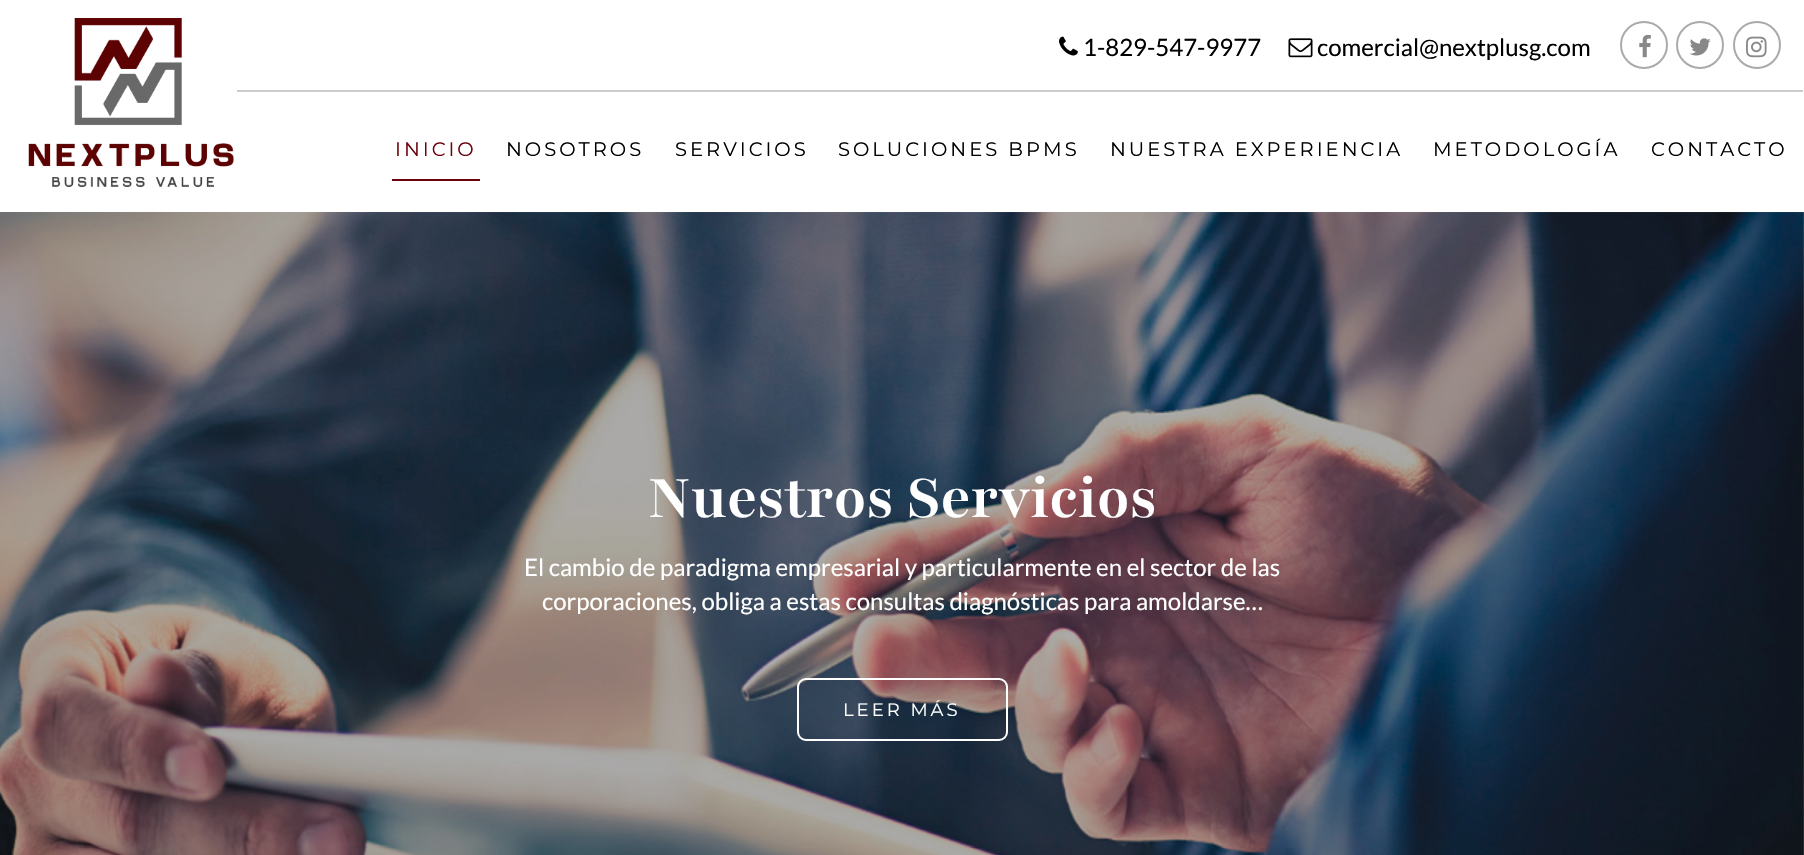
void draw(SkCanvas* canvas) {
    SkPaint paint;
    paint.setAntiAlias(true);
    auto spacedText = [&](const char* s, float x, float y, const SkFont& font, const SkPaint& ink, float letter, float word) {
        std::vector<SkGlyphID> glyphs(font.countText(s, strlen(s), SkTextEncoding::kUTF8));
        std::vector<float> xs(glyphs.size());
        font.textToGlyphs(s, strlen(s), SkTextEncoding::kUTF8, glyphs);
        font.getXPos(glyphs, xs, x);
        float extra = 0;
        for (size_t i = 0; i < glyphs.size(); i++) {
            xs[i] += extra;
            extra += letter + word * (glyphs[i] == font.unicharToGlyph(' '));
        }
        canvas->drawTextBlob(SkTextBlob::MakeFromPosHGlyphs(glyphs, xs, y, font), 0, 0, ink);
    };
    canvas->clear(0xFFFFFFFF);
    paint.setColor(0xFFCCCCCC);
    canvas->drawRect(SkRect::MakeXYWH(237, 90, 1566, 2), paint);
    canvas->drawImageRect(SkImages::DeferredFromEncodedData(SkData::MakeFromFileName("img1.png")), SkRect::MakeXYWH(1059, 36, 19, 20), SkSamplingOptions());
    SkFont font1(fontMgr->matchFamilyStyle("Lato", SkFontStyle::Normal()), 24);
    font1.setSubpixel(true);
    paint.setColor(0xFF000000);
    canvas->drawString("1-829-547-9977", 1083, 56, font1, paint);
    canvas->drawImageRect(SkImages::DeferredFromEncodedData(SkData::MakeFromFileName("img2.png")), SkRect::MakeXYWH(1288, 38, 25, 20), SkSamplingOptions());
    canvas->drawString("comercial@nextplusg.com", 1317, 56, font1, paint);
    paint.setStyle(SkPaint::kStroke_Style);
    paint.setStrokeWidth(2);
    paint.setColor(0xFFAAAAAA);
    canvas->drawCircle(1644, 45, 23, paint);
    canvas->drawImageRect(SkImages::DeferredFromEncodedData(SkData::MakeFromFileName("img3.png")), SkRect::MakeXYWH(1639, 34, 12, 24), SkSamplingOptions());
    canvas->drawCircle(1700, 45, 23, paint);
    canvas->drawImageRect(SkImages::DeferredFromEncodedData(SkData::MakeFromFileName("img4.png")), SkRect::MakeXYWH(1689, 38, 22, 18), SkSamplingOptions());
    canvas->drawCircle(1757, 45, 23, paint);
    canvas->drawImageRect(SkImages::DeferredFromEncodedData(SkData::MakeFromFileName("img5.png")), SkRect::MakeXYWH(1746, 36, 21, 22), SkSamplingOptions());
    canvas->drawImageRect(SkImages::DeferredFromEncodedData(SkData::MakeFromFileName("img6.png")), SkRect::MakeXYWH(28, 18, 206, 170), SkSamplingOptions());
    paint.setStyle(SkPaint::kFill_Style);
    paint.setColor(0xFF6B020B);
    canvas->drawRect(SkRect::MakeXYWH(392, 179, 88, 2), paint);
    SkFont font2(fontMgr->matchFamilyStyle("Montserrat", SkFontStyle::Normal()), 19.5f);
    font2.setSubpixel(true);
    spacedText("INICIO", 395, 156, font2, paint, 3, 0);
    paint.setColor(0xFF000000);
    spacedText("NOSOTROS", 506, 156, font2, paint, 3, 0);
    spacedText("SERVICIOS", 675, 156, font2, paint, 3, 0);
    spacedText("SOLUCIONES BPMS", 838, 156, font2, paint, 3, 0);
    spacedText("NUESTRA EXPERIENCIA", 1110, 156, font2, paint, 3, 0);
    spacedText("METODOLOGÍA", 1433, 156, font2, paint, 3, 0);
    spacedText("CONTACTO", 1651, 156, font2, paint, 3, 0);
    canvas->drawImageRect(SkImages::DeferredFromEncodedData(SkData::MakeFromFileName("img7.png")), SkRect::MakeXYWH(0, 212, 1804, 643), SkSamplingOptions());
    SkFont font3(fontMgr->matchFamilyStyle("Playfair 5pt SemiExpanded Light", SkFontStyle::Bold()), 66);
    font3.setSubpixel(true);
    paint.setColor(0xFFFFFFFF);
    canvas->drawString("Nuestros Servicios", 648, 517, font3, paint);
    canvas->drawString("El cambio de paradigma empresarial y particularmente en el sector de las", 524, 576, font1, paint);
    canvas->drawString("corporaciones, obliga a estas consultas diagnósticas para amoldarse…", 542, 610, font1, paint);
    paint.setStyle(SkPaint::kStroke_Style);
    canvas->drawRoundRect(SkRect::MakeXYWH(798, 679, 209, 61), 8, 8, paint);
    SkFont font4(fontMgr->matchFamilyStyle("Montserrat", SkFontStyle::Normal()), 18);
    font4.setSubpixel(true);
    paint.setStyle(SkPaint::kFill_Style);
    spacedText("LEER MÁS", 843, 716, font4, paint, 3, 0);
}
